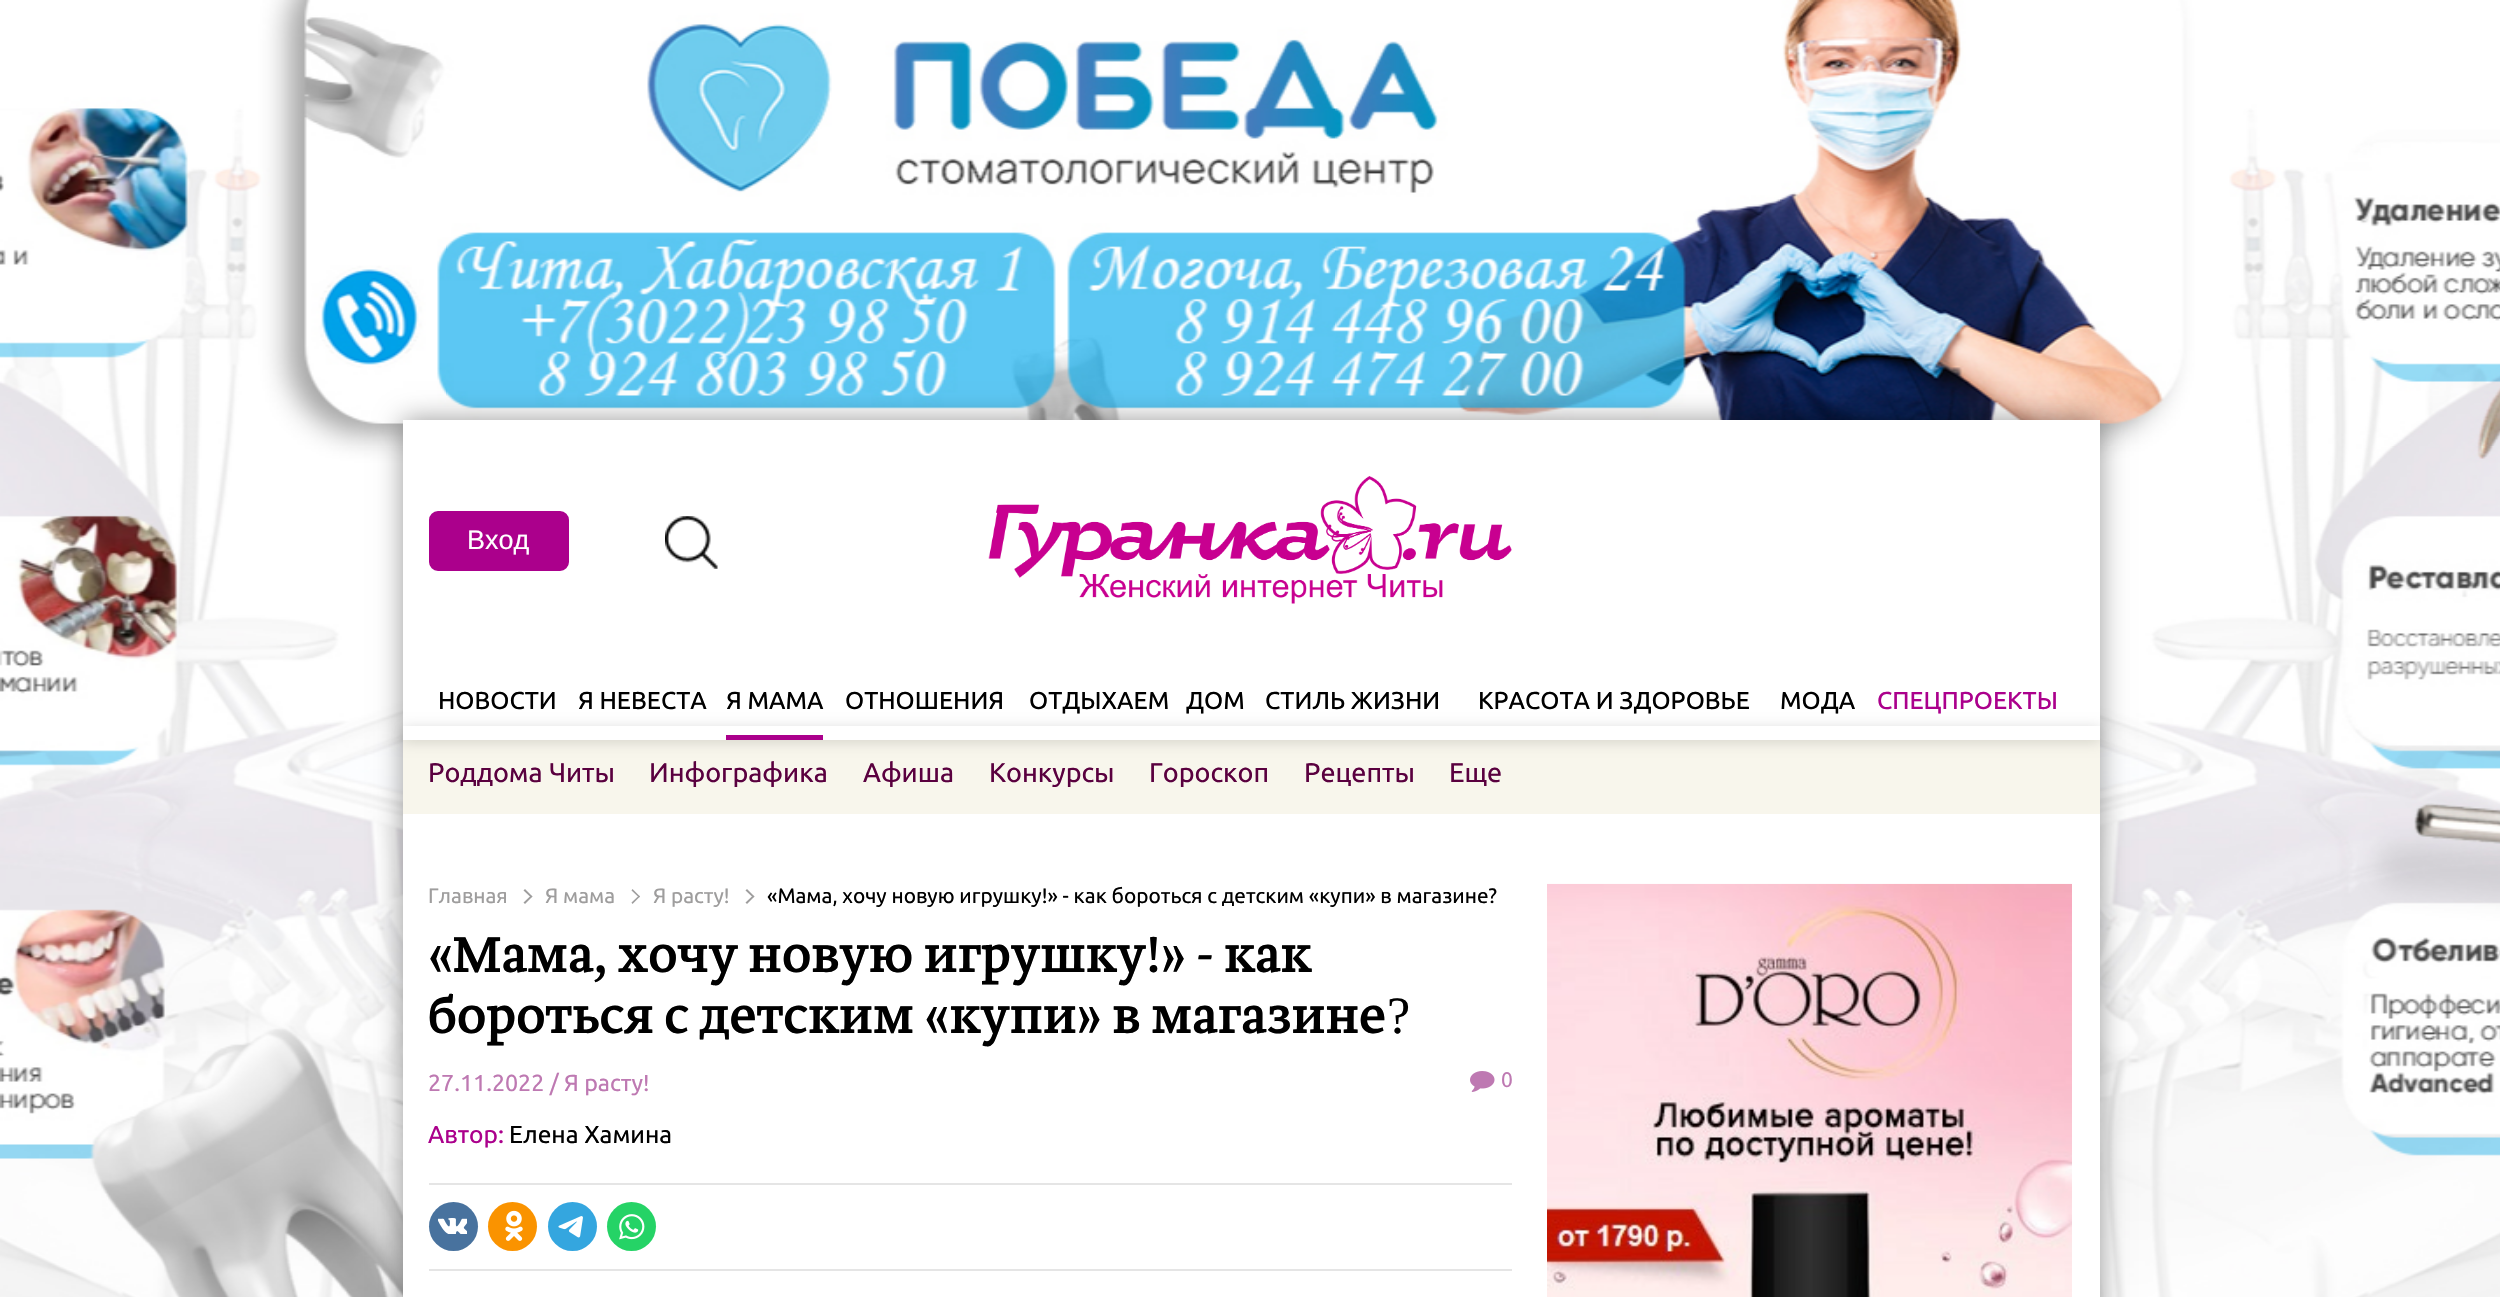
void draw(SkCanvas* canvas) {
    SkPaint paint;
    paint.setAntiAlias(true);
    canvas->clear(0xFFFFFFFF);
    canvas->drawImageRect(SkImages::DeferredFromEncodedData(SkData::MakeFromFileName("img1.png")), SkRect::MakeXYWH(0, 0, 2500, 1297), SkSamplingOptions());
    paint.setColor(0x66000000);
    paint.setMaskFilter(SkMaskFilter::MakeBlur(kNormal_SkBlurStyle, 13));
    canvas->drawRect(SkRect::MakeXYWH(403, 420, 1697, 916), paint);
    paint.setMaskFilter(nullptr);
    paint.setColor(0xFFFFFFFF);
    canvas->drawRect(SkRect::MakeXYWH(403, 420, 1697, 877), paint);
    paint.setColor(0xFFAB008C);
    canvas->drawRoundRect(SkRect::MakeXYWH(431, 513, 136, 56), 7, 7, paint);
    paint.setStyle(SkPaint::kStroke_Style);
    paint.setStrokeWidth(4);
    canvas->drawRoundRect(SkRect::MakeXYWH(431, 513, 136, 56), 7, 7, paint);
    SkFont font1(fontMgr->matchFamilyStyle("Liberation Sans", SkFontStyle::Normal()), 27);
    font1.setSubpixel(true);
    paint.setStyle(SkPaint::kFill_Style);
    paint.setColor(0xFFFFFFFF);
    canvas->drawString("Вход", 467, 549, font1, paint);
    canvas->drawImageRect(SkImages::DeferredFromEncodedData(SkData::MakeFromFileName("img2.png")), SkRect::MakeXYWH(665, 516, 53, 53), SkSamplingOptions());
    canvas->drawImageRect(SkImages::DeferredFromEncodedData(SkData::MakeFromFileName("img3.png")), SkRect::MakeXYWH(988, 476, 524, 128), SkSamplingOptions());
    paint.setColor(0xFFF8F6EC);
    canvas->drawRect(SkRect::MakeXYWH(403, 740, 1697, 74), paint);
    canvas->save();
    canvas->clipPath(SkPathBuilder(SkPathFillType::kEvenOdd).moveTo(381, 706).lineTo(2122, 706).lineTo(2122, 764).lineTo(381, 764).close().moveTo(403, 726).lineTo(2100, 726).lineTo(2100, 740).lineTo(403, 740).close().detach(), true);
    paint.setColor(0x26000000);
    paint.setMaskFilter(SkMaskFilter::MakeBlur(kNormal_SkBlurStyle, 7));
    canvas->drawRect(SkRect::MakeXYWH(403, 728, 1697, 14), paint);
    paint.setMaskFilter(nullptr);
    canvas->restore();
    SkFont font2(fontMgr->matchFamilyStyle("Ubuntu", SkFontStyle(500, SkFontStyle::kNormal_Width, SkFontStyle::kUpright_Slant)), 24.5f);
    font2.setSubpixel(true);
    paint.setColor(0xFF000000);
    canvas->drawString("НОВОСТИ", 438, 709, font2, paint);
    canvas->drawString("Я НЕВЕСТА", 578, 709, font2, paint);
    paint.setColor(0xFFAB008C);
    canvas->drawRect(SkRect::MakeXYWH(726, 735, 97, 5), paint);
    paint.setColor(0xFF000000);
    canvas->drawString("Я МАМА", 726, 709, font2, paint);
    canvas->drawString("ОТНОШЕНИЯ", 845, 709, font2, paint);
    canvas->drawString("ОТДЫХАЕМ", 1029, 709, font2, paint);
    canvas->drawString("ДОМ", 1186, 709, font2, paint);
    canvas->drawString("СТИЛЬ ЖИЗНИ", 1265, 709, font2, paint);
    canvas->drawString("КРАСОТА И ЗДОРОВЬЕ", 1478, 709, font2, paint);
    canvas->drawString("МОДА", 1780, 709, font2, paint);
    paint.setColor(0xFFAB008C);
    canvas->drawString("СПЕЦПРОЕКТЫ", 1877, 709, font2, paint);
    SkFont font3(fontMgr->matchFamilyStyle("Ubuntu", SkFontStyle::Normal()), 27);
    font3.setSubpixel(true);
    paint.setColor(0xFF5A003F);
    canvas->drawString("Роддома Читы", 428, 782, font3, paint);
    canvas->drawString("Инфографика", 649, 782, font3, paint);
    canvas->drawString("Афиша", 863, 782, font3, paint);
    canvas->drawString("Конкурсы", 989, 782, font3, paint);
    canvas->drawString("Гороскоп", 1149, 782, font3, paint);
    canvas->drawString("Рецепты", 1304, 782, font3, paint);
    canvas->drawString("Еще", 1449, 782, font3, paint);
    SkFont font4(fontMgr->matchFamilyStyle("Ubuntu", SkFontStyle::Normal()), 20.8f);
    font4.setSubpixel(true);
    paint.setColor(0xFF9E9D9D);
    canvas->drawString("Главная", 428, 903, font4, paint);
    canvas->drawPath(SkPathBuilder().moveTo(523.5f, 890.5f).lineTo(525, 889).lineTo(532.5f, 896.5f).lineTo(531, 897.5f).close().detach(), paint);
    canvas->drawPath(SkPathBuilder().moveTo(523.5f, 902.5f).lineTo(531, 895.5f).lineTo(532.5f, 896.5f).lineTo(525, 904).close().detach(), paint);
    canvas->drawString("Я мама", 545, 903, font4, paint);
    canvas->drawPath(SkPathBuilder().moveTo(631.5f, 890.5f).lineTo(632.5f, 889).lineTo(640, 896.5f).lineTo(639, 897.5f).close().detach(), paint);
    canvas->drawPath(SkPathBuilder().moveTo(631.5f, 902.5f).lineTo(639, 895.5f).lineTo(640, 896.5f).lineTo(632.5f, 904).close().detach(), paint);
    canvas->drawString("Я расту!", 653, 903, font4, paint);
    canvas->drawPath(SkPathBuilder().moveTo(745.5f, 890.5f).lineTo(747, 889).lineTo(754.5f, 896.5f).lineTo(753, 897.5f).close().detach(), paint);
    canvas->drawPath(SkPathBuilder().moveTo(745.5f, 902.5f).lineTo(753, 895.5f).lineTo(754.5f, 896.5f).lineTo(747, 904).close().detach(), paint);
    paint.setColor(0xFF000000);
    canvas->drawString("«Мама, хочу новую игрушку!» - как бороться с детским «купи» в магазине?", 767, 903, font4, paint);
    SkFont font5(fontMgr->matchFamilyStyle("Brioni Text", SkFontStyle::Normal()), 52.4f);
    font5.setSubpixel(true);
    canvas->drawString("«Мама, хочу новую игрушку!» - как", 428, 972, font5, paint);
    canvas->drawString("бороться с детским «купи» в магазине", 428, 1033, font5, paint);
    SkFont font6(fontMgr->matchFamilyStyle("Liberation Serif", SkFontStyle::Normal()), 52.4f);
    font6.setSubpixel(true);
    canvas->drawString("?", 1387, 1033, font6, paint);
    SkFont font7(fontMgr->matchFamilyStyle("Ubuntu", SkFontStyle::Normal()), 23.25f);
    font7.setSubpixel(true);
    paint.setColor(0xFFBE79B2);
    canvas->drawString("27.11.2022 / Я расту!", 428, 1091, font7, paint);
    canvas->drawImageRect(SkImages::DeferredFromEncodedData(SkData::MakeFromFileName("img4.png")), SkRect::MakeXYWH(1470, 1071, 25, 21), SkSamplingOptions());
    SkFont font8(fontMgr->matchFamilyStyle("Ubuntu", SkFontStyle::Normal()), 21);
    font8.setSubpixel(true);
    canvas->drawString("0", 1501, 1087, font8, paint);
    SkFont font9(fontMgr->matchFamilyStyle("Ubuntu", SkFontStyle::Normal()), 24.5f);
    font9.setSubpixel(true);
    paint.setColor(0xFFAB008C);
    canvas->drawString("Автор:", 428, 1143, font9, paint);
    paint.setColor(0xFF000000);
    canvas->drawString("Елена Хамина", 509, 1143, font9, paint);
    paint.setColor(0xFFE5E5E5);
    canvas->drawRect(SkRect::MakeXYWH(429, 1183, 1083, 2), paint);
    canvas->drawRect(SkRect::MakeXYWH(429, 1269, 1083, 2), paint);
    paint.setColor(0xFF48729E);
    canvas->drawCircle(453.5f, 1226.5f, 24.5f, paint);
    canvas->drawImageRect(SkImages::DeferredFromEncodedData(SkData::MakeFromFileName("img5.png")), SkRect::MakeXYWH(438, 1218, 29, 16), SkSamplingOptions());
    paint.setColor(0xFFFA9300);
    canvas->drawCircle(512.5f, 1226.5f, 24.5f, paint);
    canvas->drawImageRect(SkImages::DeferredFromEncodedData(SkData::MakeFromFileName("img6.png")), SkRect::MakeXYWH(505, 1210, 18, 31), SkSamplingOptions());
    paint.setColor(0xFF34A6DF);
    canvas->drawCircle(572.5f, 1226.5f, 24.5f, paint);
    canvas->drawImageRect(SkImages::DeferredFromEncodedData(SkData::MakeFromFileName("img7.png")), SkRect::MakeXYWH(558, 1216, 25, 22), SkSamplingOptions());
    paint.setColor(0xFF25D366);
    canvas->drawCircle(631.5f, 1226.5f, 24.5f, paint);
    canvas->drawImageRect(SkImages::DeferredFromEncodedData(SkData::MakeFromFileName("img8.png")), SkRect::MakeXYWH(619, 1214, 26, 26), SkSamplingOptions());
    canvas->drawImageRect(SkImages::DeferredFromEncodedData(SkData::MakeFromFileName("img9.png")), SkRect::MakeXYWH(1547, 883, 525, 414), SkSamplingOptions());
}
